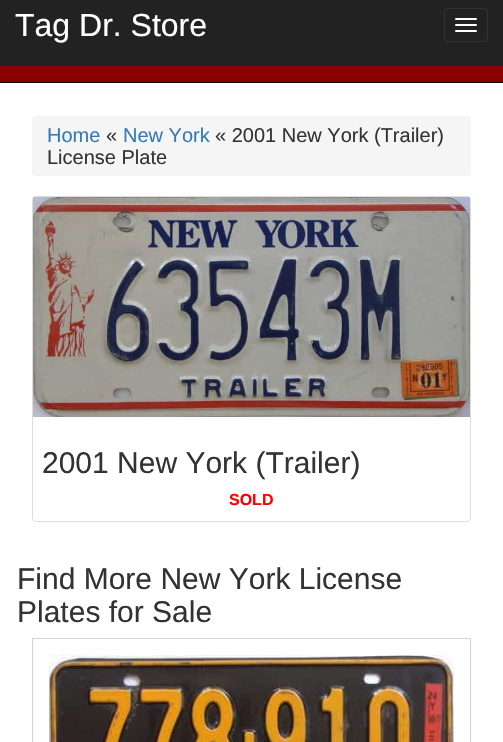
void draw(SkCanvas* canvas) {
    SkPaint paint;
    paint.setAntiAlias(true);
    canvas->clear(0xFFFFFFFF);
    paint.setColor(0xFF222222);
    canvas->drawRect(SkRect::MakeXYWH(0, 0, 503, 66), paint);
    paint.setColor(0xFF080808);
    canvas->drawRect(SkRect::MakeXYWH(0, 82, 503, 1), paint);
    SkFont font1(fontMgr->matchFamilyStyle("Liberation Sans", SkFontStyle::Normal()), 32);
    font1.setSubpixel(true);
    paint.setColor(0xFFFFFFFF);
    canvas->drawString("Tag Dr. Store", 15, 36, font1, paint);
    paint.setStyle(SkPaint::kStroke_Style);
    paint.setStrokeWidth(1);
    paint.setColor(0xFF333333);
    canvas->drawRoundRect(SkRect::MakeXYWH(444.5f, 8.5f, 43, 33), 3.5f, 3.5f, paint);
    paint.setStyle(SkPaint::kFill_Style);
    paint.setColor(0xFFFFFFFF);
    canvas->drawRoundRect(SkRect::MakeXYWH(455, 18, 22, 2), 1, 1, paint);
    canvas->drawRoundRect(SkRect::MakeXYWH(455, 24, 22, 2), 1, 1, paint);
    canvas->drawRoundRect(SkRect::MakeXYWH(455, 30, 22, 2), 1, 1, paint);
    paint.setColor(0xFF8B0000);
    canvas->drawRect(SkRect::MakeXYWH(0, 66, 503, 16), paint);
    paint.setColor(0xFFF5F5F5);
    canvas->drawRoundRect(SkRect::MakeXYWH(32, 116, 439, 60), 4, 4, paint);
    SkFont font2(fontMgr->matchFamilyStyle("Liberation Sans", SkFontStyle::Normal()), 20);
    font2.setSubpixel(true);
    paint.setColor(0xFF337AB7);
    canvas->drawString("Home", 47, 142, font2, paint);
    paint.setColor(0xFF333333);
    canvas->drawString("«", 106, 142, font2, paint);
    paint.setColor(0xFF337AB7);
    canvas->drawString("New York", 123, 142, font2, paint);
    paint.setColor(0xFF333333);
    canvas->drawString("« 2001 New York (Trailer)", 215, 142, font2, paint);
    canvas->drawString("License Plate", 47, 164, font2, paint);
    paint.setStyle(SkPaint::kStroke_Style);
    paint.setColor(0xFFDDDDDD);
    canvas->drawRoundRect(SkRect::MakeXYWH(32.5f, 196.5f, 438, 325), 3.5f, 3.5f, paint);
    canvas->drawImageRect(SkImages::DeferredFromEncodedData(SkData::MakeFromFileName("img1.png")), SkRect::MakeXYWH(33, 197, 437, 220), SkSamplingOptions());
    SkFont font3(fontMgr->matchFamilyStyle("Liberation Sans", SkFontStyle::Normal()), 30);
    font3.setSubpixel(true);
    paint.setStyle(SkPaint::kFill_Style);
    paint.setColor(0xFF333333);
    canvas->drawString("2001 New York (Trailer)", 42, 473, font3, paint);
    SkFont font4(fontMgr->matchFamilyStyle("Liberation Sans", SkFontStyle::Bold()), 16);
    font4.setSubpixel(true);
    paint.setColor(0xFFFF0000);
    canvas->drawString("SOLD", 229, 505, font4, paint);
    paint.setColor(0xFF333333);
    canvas->drawString("Find More New York License", 17, 589, font3, paint);
    canvas->drawString("Plates for Sale", 17, 622, font3, paint);
    paint.setStyle(SkPaint::kStroke_Style);
    paint.setColor(0xFFD3D3D3);
    canvas->drawRect(SkRect::MakeXYWH(32.5f, 638.5f, 438, 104), paint);
    canvas->drawImageRect(SkImages::DeferredFromEncodedData(SkData::MakeFromFileName("img2.png")), SkRect::MakeXYWH(49, 655, 405, 87), SkSamplingOptions());
}
